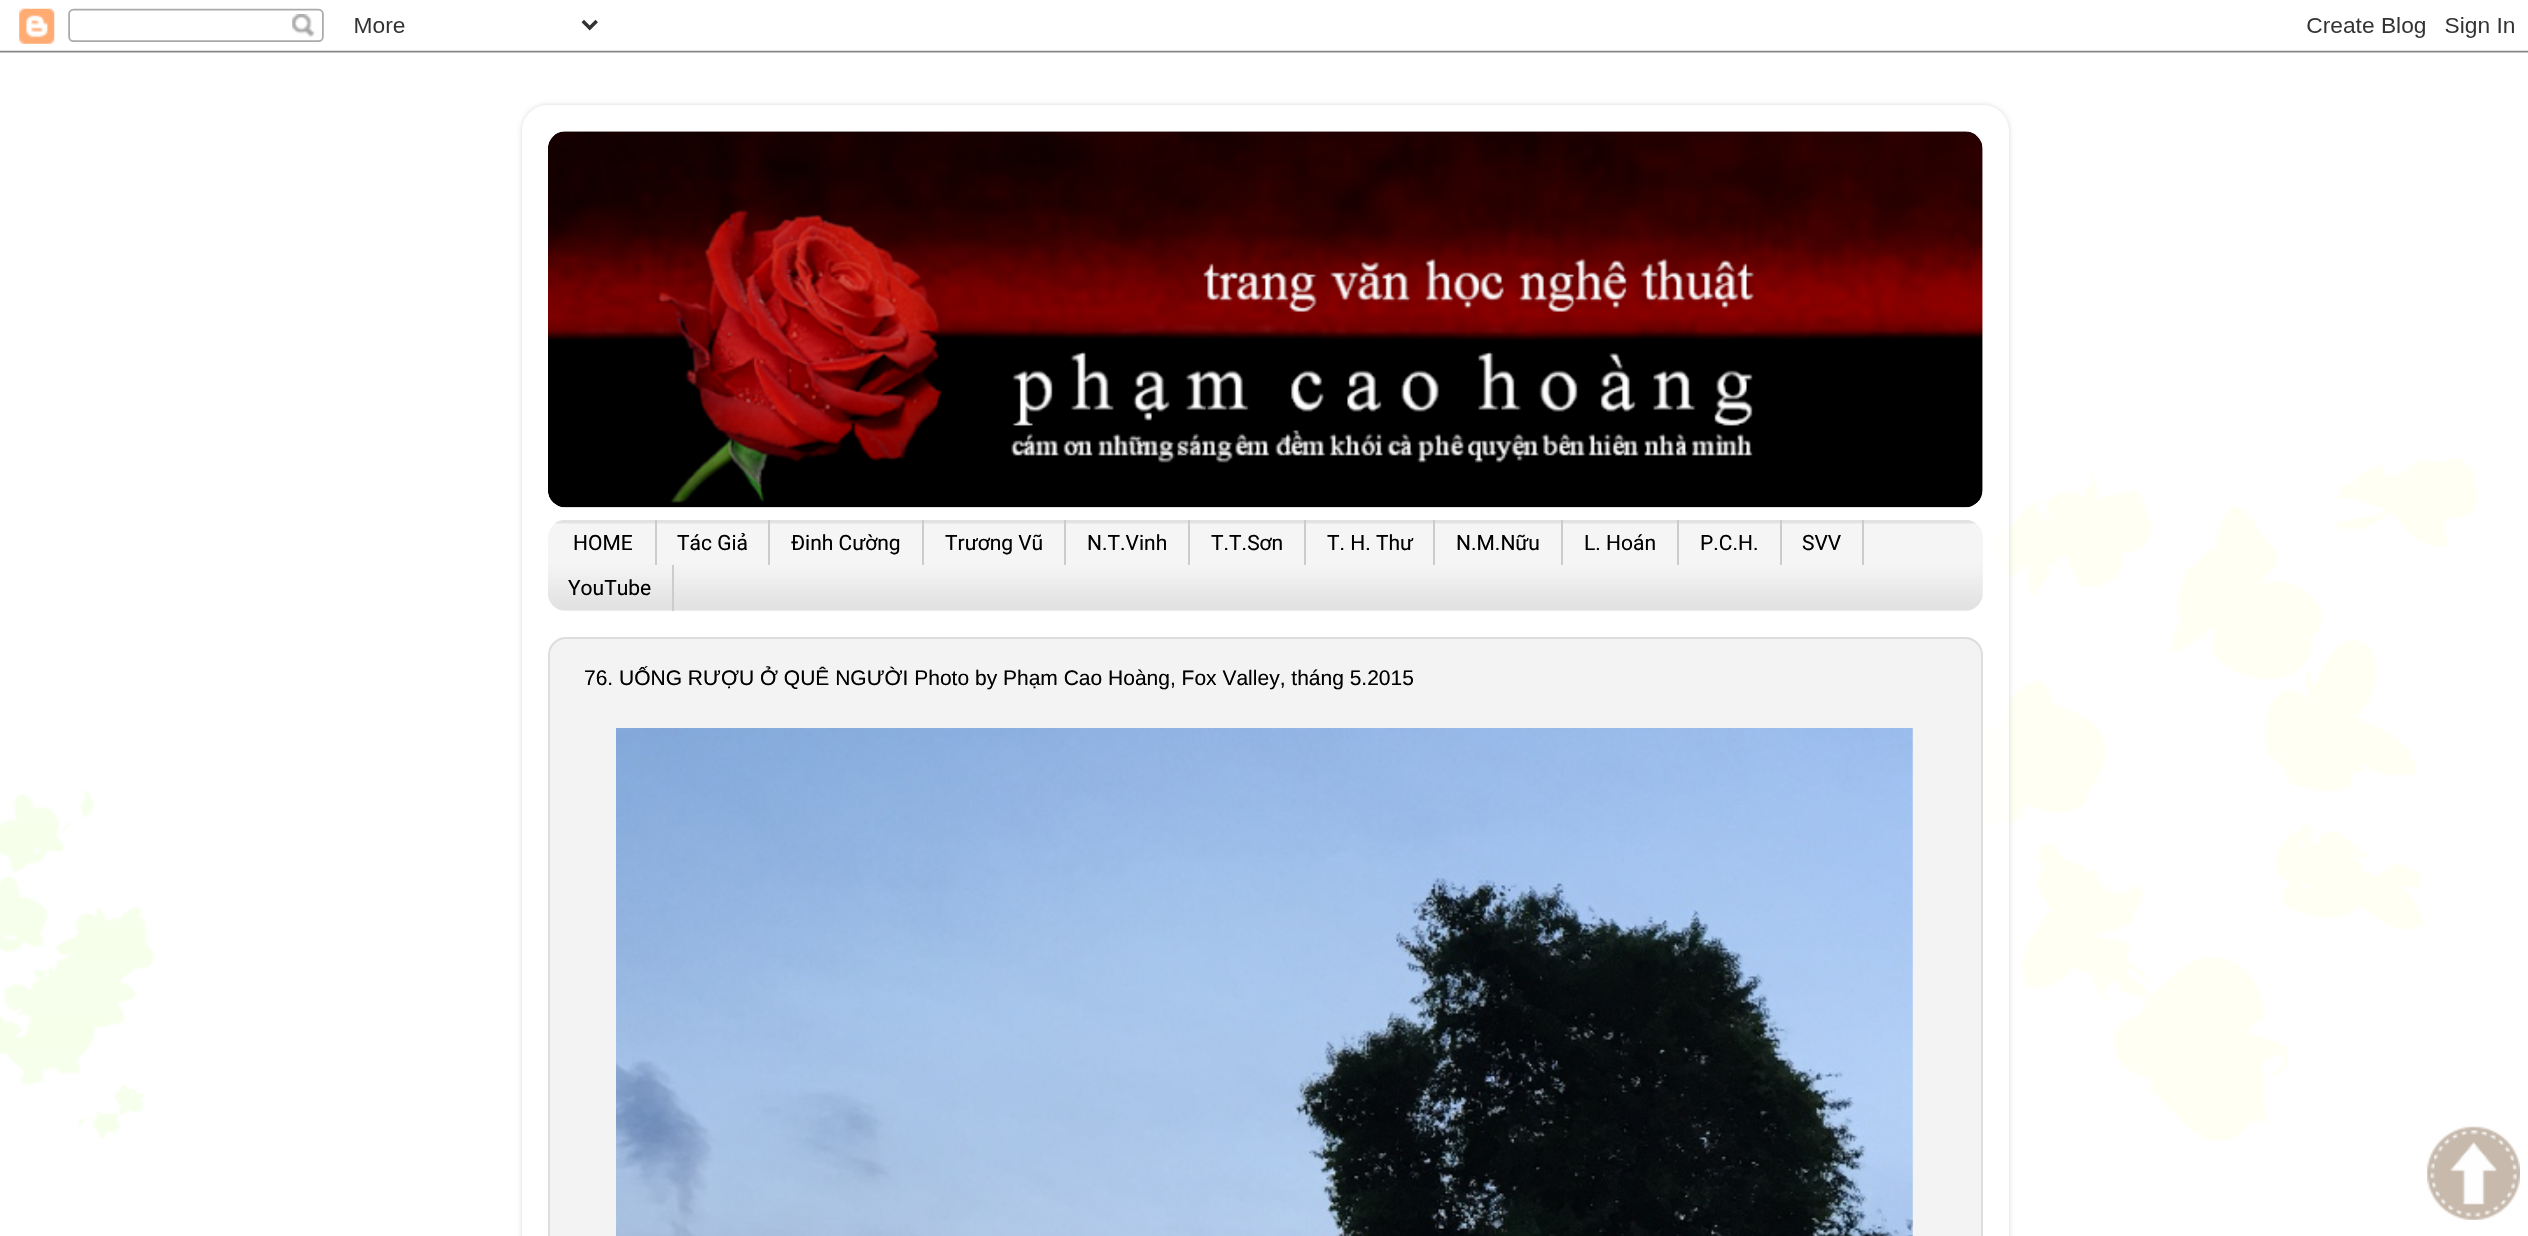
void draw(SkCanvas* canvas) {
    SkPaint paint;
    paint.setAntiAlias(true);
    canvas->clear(0xFFFFFFFF);
    canvas->drawImageRect(SkImages::DeferredFromEncodedData(SkData::MakeFromFileName("img1.png")), SkRect::MakeXYWH(0, 458, 2477, 683), SkSamplingOptions());
    canvas->drawImageRect(SkImages::DeferredFromEncodedData(SkData::MakeFromFileName("img2.png")), SkRect::MakeXYWH(0, 8, 2528, 45), SkSamplingOptions());
    canvas->save();
    canvas->clipPath(SkPathBuilder(SkPathFillType::kEvenOdd).moveTo(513, 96).lineTo(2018, 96).lineTo(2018, 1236).lineTo(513, 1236).close().moveTo(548, 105).lineTo(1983, 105).cubicTo(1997.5f, 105, 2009, 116.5f, 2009, 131).lineTo(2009, 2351).cubicTo(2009, 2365.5f, 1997.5f, 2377, 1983, 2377).lineTo(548, 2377).cubicTo(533.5f, 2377, 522, 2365.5f, 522, 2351).lineTo(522, 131).cubicTo(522, 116.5f, 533.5f, 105, 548, 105).close().detach(), true);
    paint.setColor(0x26000000);
    paint.setMaskFilter(SkMaskFilter::MakeBlur(kNormal_SkBlurStyle, 2.5f));
    canvas->drawRoundRect(SkRect::MakeXYWH(522, 105, 1487, 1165), 26, 26, paint);
    paint.setMaskFilter(nullptr);
    canvas->restore();
    paint.setColor(0xB3FFFFFF);
    canvas->drawRect(SkRect::MakeXYWH(1930, 527, 79, 297), paint);
    canvas->drawImageRect(SkImages::DeferredFromEncodedData(SkData::MakeFromFileName("img3.png")), SkRect::MakeXYWH(548, 131, 1435, 377), SkSamplingOptions());
    paint.setColor(0xFFF5F5F5);
    canvas->drawRoundRect(SkRect::MakeXYWH(548, 520, 1435, 91), 18, 18, paint);
    canvas->drawImageRect(SkImages::DeferredFromEncodedData(SkData::MakeFromFileName("img4.png")), SkRect::MakeXYWH(548, 520, 1435, 91), SkSamplingOptions());
    paint.setColor(0xFFCCCCCC);
    canvas->drawRect(SkRect::MakeXYWH(655, 520, 2, 45), paint);
    SkFont font1(fontMgr->matchFamilyStyle("Roboto", SkFontStyle::Normal()), 21);
    font1.setSubpixel(true);
    paint.setColor(0xFF000000);
    canvas->drawString("HOME", 573, 550, font1, paint);
    paint.setColor(0xFFCCCCCC);
    canvas->drawRect(SkRect::MakeXYWH(768, 520, 2, 45), paint);
    paint.setColor(0xFF000000);
    canvas->drawString("Tác Giả", 677, 550, font1, paint);
    paint.setColor(0xFFCCCCCC);
    canvas->drawRect(SkRect::MakeXYWH(922, 520, 2, 45), paint);
    paint.setColor(0xFF000000);
    canvas->drawString("Đinh Cường", 791, 550, font1, paint);
    paint.setColor(0xFFCCCCCC);
    canvas->drawRect(SkRect::MakeXYWH(1064, 520, 2, 45), paint);
    paint.setColor(0xFF000000);
    canvas->drawString("Trương Vũ", 945, 550, font1, paint);
    paint.setColor(0xFFCCCCCC);
    canvas->drawRect(SkRect::MakeXYWH(1188, 520, 2, 45), paint);
    paint.setColor(0xFF000000);
    canvas->drawString("N.T.Vinh", 1087, 550, font1, paint);
    paint.setColor(0xFFCCCCCC);
    canvas->drawRect(SkRect::MakeXYWH(1304, 520, 2, 45), paint);
    paint.setColor(0xFF000000);
    canvas->drawString("T.T.Sơn", 1211, 550, font1, paint);
    paint.setColor(0xFFCCCCCC);
    canvas->drawRect(SkRect::MakeXYWH(1433, 520, 2, 45), paint);
    paint.setColor(0xFF000000);
    canvas->drawString("T. H. Thư", 1327, 550, font1, paint);
    paint.setColor(0xFFCCCCCC);
    canvas->drawRect(SkRect::MakeXYWH(1561, 520, 2, 45), paint);
    paint.setColor(0xFF000000);
    canvas->drawString("N.M.Nữu", 1456, 550, font1, paint);
    paint.setColor(0xFFCCCCCC);
    canvas->drawRect(SkRect::MakeXYWH(1677, 520, 2, 45), paint);
    paint.setColor(0xFF000000);
    canvas->drawString("L. Hoán", 1584, 550, font1, paint);
    paint.setColor(0xFFCCCCCC);
    canvas->drawRect(SkRect::MakeXYWH(1780, 520, 2, 45), paint);
    paint.setColor(0xFF000000);
    canvas->drawString("P.C.H.", 1700, 550, font1, paint);
    paint.setColor(0xFFCCCCCC);
    canvas->drawRect(SkRect::MakeXYWH(1862, 520, 2, 45), paint);
    paint.setColor(0xFF000000);
    canvas->drawString("SVV", 1802, 550, font1, paint);
    paint.setColor(0xFFCCCCCC);
    canvas->drawRect(SkRect::MakeXYWH(672, 565, 2, 46), paint);
    paint.setColor(0xFF000000);
    canvas->drawString("YouTube", 568, 595, font1, paint);
    paint.setColor(0xFFF3F3F3);
    canvas->drawRoundRect(SkRect::MakeXYWH(549, 638, 1433, 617), 17, 17, paint);
    paint.setStyle(SkPaint::kStroke_Style);
    paint.setStrokeWidth(2);
    paint.setColor(0xFFDDDDDD);
    canvas->drawRoundRect(SkRect::MakeXYWH(549, 638, 1433, 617), 17, 17, paint);
    SkFont font2(fontMgr->matchFamilyStyle("Liberation Sans", SkFontStyle::Normal()), 21);
    font2.setSubpixel(true);
    paint.setStyle(SkPaint::kFill_Style);
    paint.setColor(0xFF000000);
    canvas->drawString("76. UỐNG RƯỢU Ở QUÊ NGƯỜI Photo by Phạm Cao Hoàng, Fox Valley, tháng 5.2015", 584, 685, font2, paint);
    canvas->drawImageRect(SkImages::DeferredFromEncodedData(SkData::MakeFromFileName("img5.png")), SkRect::MakeXYWH(616, 728, 1297, 508), SkSamplingOptions());
    canvas->drawImageRect(SkImages::DeferredFromEncodedData(SkData::MakeFromFileName("img6.png")), SkRect::MakeXYWH(2427, 1126, 93, 94), SkSamplingOptions());
}
